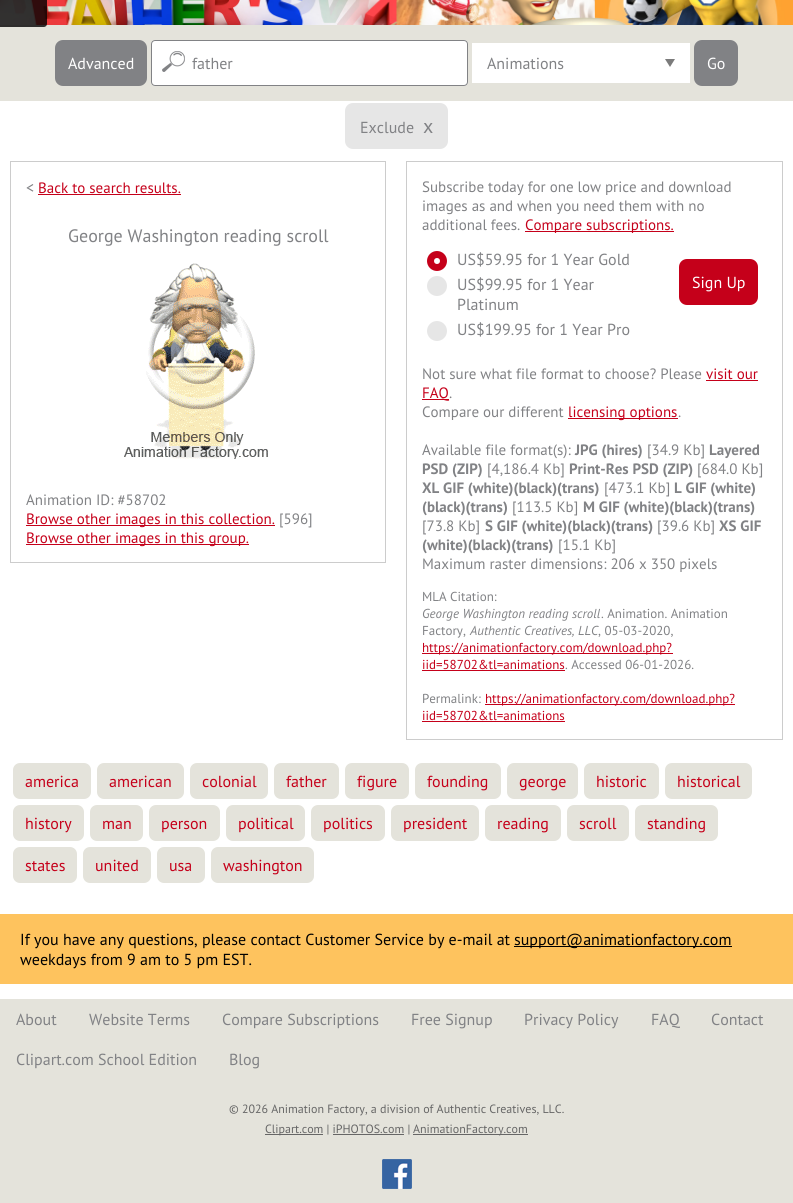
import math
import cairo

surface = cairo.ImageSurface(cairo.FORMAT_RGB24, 793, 1203)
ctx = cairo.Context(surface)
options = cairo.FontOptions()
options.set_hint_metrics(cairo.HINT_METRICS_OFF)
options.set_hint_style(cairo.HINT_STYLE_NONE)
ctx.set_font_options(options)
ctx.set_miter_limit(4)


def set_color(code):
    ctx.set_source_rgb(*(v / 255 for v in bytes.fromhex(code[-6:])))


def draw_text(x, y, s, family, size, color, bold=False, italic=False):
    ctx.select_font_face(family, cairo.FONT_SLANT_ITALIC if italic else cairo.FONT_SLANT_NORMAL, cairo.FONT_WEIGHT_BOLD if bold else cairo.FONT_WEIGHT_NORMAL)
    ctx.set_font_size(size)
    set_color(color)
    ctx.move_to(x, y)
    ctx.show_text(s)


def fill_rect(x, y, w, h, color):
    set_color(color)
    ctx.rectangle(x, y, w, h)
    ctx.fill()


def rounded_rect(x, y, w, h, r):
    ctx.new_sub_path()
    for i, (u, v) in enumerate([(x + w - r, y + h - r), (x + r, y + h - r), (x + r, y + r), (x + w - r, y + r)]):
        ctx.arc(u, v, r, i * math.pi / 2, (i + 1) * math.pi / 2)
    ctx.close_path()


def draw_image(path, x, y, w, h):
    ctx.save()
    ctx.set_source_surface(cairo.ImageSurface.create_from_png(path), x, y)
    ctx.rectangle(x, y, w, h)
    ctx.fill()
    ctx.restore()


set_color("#ffffff")
ctx.paint()
draw_image("assets/img1.png", 0, 0, 793, 25)
fill_rect(0, 25, 793, 76, "#e4e3db")
ctx.set_source_rgba(0, 0, 0, 0.8)
ctx.new_path()
ctx.move_to(0, -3)
ctx.line_to(44, -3)
ctx.curve_to(45.5, -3, 47, -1.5, 47, 0)
ctx.line_to(47, 24)
ctx.curve_to(47, 25.5, 45.5, 27, 44, 27)
ctx.line_to(0, 27)
ctx.close_path()
ctx.fill()
set_color("#818285")
rounded_rect(55, 40, 92, 46, 8)
ctx.fill()
draw_text(68, 69, "Advanced", "PT Sans", 16, "#ffffff")
rounded_rect(151, 40, 317, 46, 4)
ctx.fill()
draw_image("assets/img2.png", 162, 51, 23, 21)
rounded_rect(151.5, 40.5, 316, 45, 3.5)
set_color("#818285")
ctx.set_line_width(1)
ctx.stroke()
draw_text(192, 69, "father", "PT Sans", 16, "#818285")
fill_rect(472, 43, 218, 40, "#ffffff")
draw_text(487, 69, "Animations", "PT Sans", 16, "#818285")
set_color("#7b7b7b")
ctx.new_path()
ctx.move_to(665, 59)
ctx.line_to(675, 59)
ctx.line_to(670, 67)
ctx.close_path()
ctx.fill()
set_color("#818285")
rounded_rect(694, 40, 44, 46, 8)
ctx.fill()
draw_text(707, 69, "Go", "PT Sans", 16, "#ffffff")
set_color("#e6e6e6")
rounded_rect(345, 103, 103, 46, 8)
ctx.fill()
draw_text(360, 133, "Exclude", "PT Sans", 16, "#818285")
draw_text(423, 133, "x", "PT Sans", 20, "#818285")
ctx.rectangle(10.5, 161.5, 375, 401)
set_color("#cccccc")
ctx.stroke()
draw_text(26, 193, "<", "PT Sans", 16, "#818285")
draw_text(38, 193, "Back to search results.", "PT Sans", 15, "#c5001a")
fill_rect(38, 194, 143, 1, "#c5001a")
draw_text(68, 242, "George Washington reading scroll", "PT Sans", 18, "#818285")
draw_image("assets/img3.png", 124, 263, 145, 196)
draw_text(26, 505, "Animation ID: #58702", "PT Sans", 15, "#818285")
fill_rect(26, 525, 249, 1, "#c5001a")
draw_text(26, 524, "Browse other images in this collection.", "PT Sans", 15, "#c5001a")
draw_text(279, 524, "[596]", "PT Sans", 15, "#818285")
fill_rect(26, 544, 223, 1, "#c5001a")
draw_text(26, 543, "Browse other images in this group.", "PT Sans", 15, "#c5001a")
ctx.rectangle(406.5, 161.5, 376, 578)
set_color("#cccccc")
ctx.stroke()
draw_text(422, 192, "Subscribe today for one low price and download", "PT Sans", 15, "#818285")
draw_text(422, 211, "images as and when you need them with no", "PT Sans", 15, "#818285")
draw_text(422, 230, "additional fees.", "PT Sans", 15, "#818285")
fill_rect(525, 231, 149, 1, "#c5001a")
draw_text(525, 230, "Compare subscriptions.", "PT Sans", 15, "#c5001a")
ctx.new_path()
ctx.arc(437, 261, 10, 0, 2 * math.pi)
ctx.fill()
set_color("#ffffff")
ctx.arc(437, 261, 3, 0, 2 * math.pi)
ctx.fill()
draw_text(457, 265, "US$59.95 for 1 Year Gold", "PT Sans", 16, "#818285")
set_color("#e6e6e6")
ctx.new_path()
ctx.arc(437, 286, 10, 0, 2 * math.pi)
ctx.fill()
draw_text(457, 290, "US$99.95 for 1 Year", "PT Sans", 16, "#818285")
draw_text(457, 310, "Platinum", "PT Sans", 16, "#818285")
set_color("#e6e6e6")
ctx.new_path()
ctx.arc(437, 331, 10, 0, 2 * math.pi)
ctx.fill()
draw_text(457, 335, "US$199.95 for 1 Year Pro", "PT Sans", 16, "#818285")
set_color("#c5001a")
rounded_rect(679, 259, 79, 46, 8)
ctx.fill()
draw_text(692, 288, "Sign Up", "PT Sans", 16, "#ffffff")
draw_text(422, 379, "Not sure what file format to choose? Please", "PT Sans", 15, "#818285")
draw_text(706, 379, "visit our", "PT Sans", 15, "#c5001a")
fill_rect(706, 380, 52, 1, "#c5001a")
fill_rect(422, 399, 27, 1, "#c5001a")
draw_text(422, 398, "FAQ", "PT Sans", 15, "#c5001a")
draw_text(449, 398, ".", "PT Sans", 15, "#818285")
draw_text(422, 417, "Compare our different", "PT Sans", 15, "#818285")
fill_rect(568, 418, 110, 1, "#c5001a")
draw_text(568, 417, "licensing options", "PT Sans", 15, "#c5001a")
draw_text(678, 417, ".", "PT Sans", 15, "#818285")
draw_text(422, 455, "Available file format(s):", "PT Sans", 15, "#818285")
draw_text(575, 455, "JPG (hires)", "PT Sans", 15, "#818285", bold=True)
draw_text(647, 455, "[34.9 Kb]", "PT Sans", 15, "#818285")
draw_text(709, 455, "Layered", "PT Sans", 15, "#818285", bold=True)
draw_text(422, 474, "PSD (ZIP)", "PT Sans", 15, "#818285", bold=True)
draw_text(487, 474, "[4,186.4 Kb]", "PT Sans", 15, "#818285")
draw_text(569, 474, "Print-Res PSD (ZIP)", "PT Sans", 15, "#818285", bold=True)
draw_text(697, 474, "[684.0 Kb]", "PT Sans", 15, "#818285")
draw_text(422, 493, "XL GIF (white)(black)(trans)", "PT Sans", 15, "#818285", bold=True)
draw_text(604, 493, "[473.1 Kb]", "PT Sans", 15, "#818285")
draw_text(674, 493, "L GIF (white)", "PT Sans", 15, "#818285", bold=True)
draw_text(422, 512, "(black)(trans)", "PT Sans", 15, "#818285", bold=True)
draw_text(512, 512, "[113.5 Kb]", "PT Sans", 15, "#818285")
draw_text(583, 512, "M GIF (white)(black)(trans)", "PT Sans", 15, "#818285", bold=True)
draw_text(422, 531, "[73.8 Kb]", "PT Sans", 15, "#818285")
draw_text(485, 531, "S GIF (white)(black)(trans)", "PT Sans", 15, "#818285", bold=True)
draw_text(657, 531, "[39.6 Kb]", "PT Sans", 15, "#818285")
draw_text(719, 531, "XS GIF", "PT Sans", 15, "#818285", bold=True)
draw_text(422, 550, "(white)(black)(trans)", "PT Sans", 15, "#818285", bold=True)
draw_text(558, 550, "[15.1 Kb]", "PT Sans", 15, "#818285")
draw_text(422, 569, "Maximum raster dimensions: 206 x 350 pixels", "PT Sans", 15, "#818285")
draw_text(422, 601, "MLA Citation:", "PT Sans", 13, "#818285")
draw_text(422, 618, "George Washington reading scroll", "PT Sans", 13, "#818285", italic=True)
draw_text(601, 618, ". Animation. Animation", "PT Sans", 13, "#818285")
draw_text(422, 635, "Factory,", "PT Sans", 13, "#818285")
draw_text(470, 635, "Authentic Creatives, LLC", "PT Sans", 13, "#818285", italic=True)
draw_text(598, 635, ", 05-03-2020,", "PT Sans", 13, "#818285")
fill_rect(422, 653, 251, 1, "#c5001a")
draw_text(422, 652, "https://animationfactory.com/download.php?", "PT Sans", 13, "#c5001a")
draw_text(422, 669, "iid=58702&tl=animations", "PT Sans", 13, "#c5001a")
fill_rect(422, 670, 143, 1, "#c5001a")
draw_text(565, 669, ". Accessed 06-01-2026.", "PT Sans", 13, "#818285")
draw_text(422, 703, "Permalink:", "PT Sans", 13, "#818285")
fill_rect(485, 704, 250, 1, "#c5001a")
draw_text(485, 703, "https://animationfactory.com/download.php?", "PT Sans", 13, "#c5001a")
draw_text(422, 720, "iid=58702&tl=animations", "PT Sans", 13, "#c5001a")
fill_rect(422, 721, 143, 1, "#c5001a")
set_color("#e4e3db")
rounded_rect(13, 763, 78, 36, 7)
ctx.fill()
draw_text(25, 787, "america", "PT Sans", 16, "#c5001a")
set_color("#e4e3db")
rounded_rect(97, 763, 87, 36, 7)
ctx.fill()
draw_text(109, 787, "american", "PT Sans", 16, "#c5001a")
set_color("#e4e3db")
rounded_rect(190, 763, 78, 36, 7)
ctx.fill()
draw_text(202, 787, "colonial", "PT Sans", 16, "#c5001a")
set_color("#e4e3db")
rounded_rect(274, 763, 65, 36, 7)
ctx.fill()
draw_text(286, 787, "father", "PT Sans", 16, "#c5001a")
set_color("#e4e3db")
rounded_rect(345, 763, 64, 36, 7)
ctx.fill()
draw_text(357, 787, "figure", "PT Sans", 16, "#c5001a")
set_color("#e4e3db")
rounded_rect(415, 763, 86, 36, 7)
ctx.fill()
draw_text(427, 787, "founding", "PT Sans", 16, "#c5001a")
set_color("#e4e3db")
rounded_rect(507, 763, 71, 36, 7)
ctx.fill()
draw_text(519, 787, "george", "PT Sans", 16, "#c5001a")
set_color("#e4e3db")
rounded_rect(584, 763, 75, 36, 7)
ctx.fill()
draw_text(596, 787, "historic", "PT Sans", 16, "#c5001a")
set_color("#e4e3db")
rounded_rect(665, 763, 87, 36, 7)
ctx.fill()
draw_text(677, 787, "historical", "PT Sans", 16, "#c5001a")
set_color("#e4e3db")
rounded_rect(13, 805, 71, 36, 7)
ctx.fill()
draw_text(25, 829, "history", "PT Sans", 16, "#c5001a")
set_color("#e4e3db")
rounded_rect(90, 805, 53, 36, 7)
ctx.fill()
draw_text(102, 829, "man", "PT Sans", 16, "#c5001a")
set_color("#e4e3db")
rounded_rect(149, 805, 71, 36, 7)
ctx.fill()
draw_text(161, 829, "person", "PT Sans", 16, "#c5001a")
set_color("#e4e3db")
rounded_rect(226, 805, 79, 36, 7)
ctx.fill()
draw_text(238, 829, "political", "PT Sans", 16, "#c5001a")
set_color("#e4e3db")
rounded_rect(311, 805, 74, 36, 7)
ctx.fill()
draw_text(323, 829, "politics", "PT Sans", 16, "#c5001a")
set_color("#e4e3db")
rounded_rect(391, 805, 88, 36, 7)
ctx.fill()
draw_text(403, 829, "president", "PT Sans", 16, "#c5001a")
set_color("#e4e3db")
rounded_rect(485, 805, 76, 36, 7)
ctx.fill()
draw_text(497, 829, "reading", "PT Sans", 16, "#c5001a")
set_color("#e4e3db")
rounded_rect(567, 805, 62, 36, 7)
ctx.fill()
draw_text(579, 829, "scroll", "PT Sans", 16, "#c5001a")
set_color("#e4e3db")
rounded_rect(635, 805, 83, 36, 7)
ctx.fill()
draw_text(647, 829, "standing", "PT Sans", 16, "#c5001a")
set_color("#e4e3db")
rounded_rect(13, 847, 64, 36, 7)
ctx.fill()
draw_text(25, 871, "states", "PT Sans", 16, "#c5001a")
set_color("#e4e3db")
rounded_rect(83, 847, 68, 36, 7)
ctx.fill()
draw_text(95, 871, "united", "PT Sans", 16, "#c5001a")
set_color("#e4e3db")
rounded_rect(157, 847, 48, 36, 7)
ctx.fill()
draw_text(169, 871, "usa", "PT Sans", 16, "#c5001a")
set_color("#e4e3db")
rounded_rect(211, 847, 103, 36, 7)
ctx.fill()
draw_text(223, 871, "washington", "PT Sans", 16, "#c5001a")
fill_rect(0, 914, 793, 70, "#fec35e")
draw_text(20, 945, "If you have any questions, please contact Customer Service by e-mail at", "PT Sans", 16, "#000000")
fill_rect(514, 946, 218, 1, "#000000")
draw_text(514, 945, "support@animationfactory.com", "PT Sans", 16, "#000000")
draw_text(20, 965, "weekdays from 9 am to 5 pm EST.", "PT Sans", 16, "#000000")
fill_rect(0, 999, 793, 204, "#e4e3db")
draw_text(16, 1025, "About", "PT Sans", 16, "#818285")
draw_text(89, 1025, "Website Terms", "PT Sans", 16, "#818285")
draw_text(222, 1025, "Compare Subscriptions", "PT Sans", 16, "#818285")
draw_text(411, 1025, "Free Signup", "PT Sans", 16, "#818285")
draw_text(524, 1025, "Privacy Policy", "PT Sans", 16, "#818285")
draw_text(651, 1025, "FAQ", "PT Sans", 16, "#818285")
draw_text(711, 1025, "Contact", "PT Sans", 16, "#818285")
draw_text(16, 1065, "Clipart.com School Edition", "PT Sans", 16, "#818285")
draw_text(229, 1065, "Blog", "PT Sans", 16, "#818285")
draw_text(229, 1113, "© 2026 Animation Factory, a division of Authentic Creatives, LLC.", "PT Sans", 12, "#666666")
fill_rect(265, 1134, 58, 1, "#666666")
draw_text(265, 1133, "Clipart.com | iPHOTOS.com |", "PT Sans", 12, "#666666")
fill_rect(413, 1134, 115, 1, "#666666")
draw_text(413, 1133, "AnimationFactory.com", "PT Sans", 12, "#666666")
fill_rect(333, 1134, 71, 1, "#666666")
draw_image("assets/img4.png", 382, 1159, 30, 30)
surface.write_to_png("output.png")
